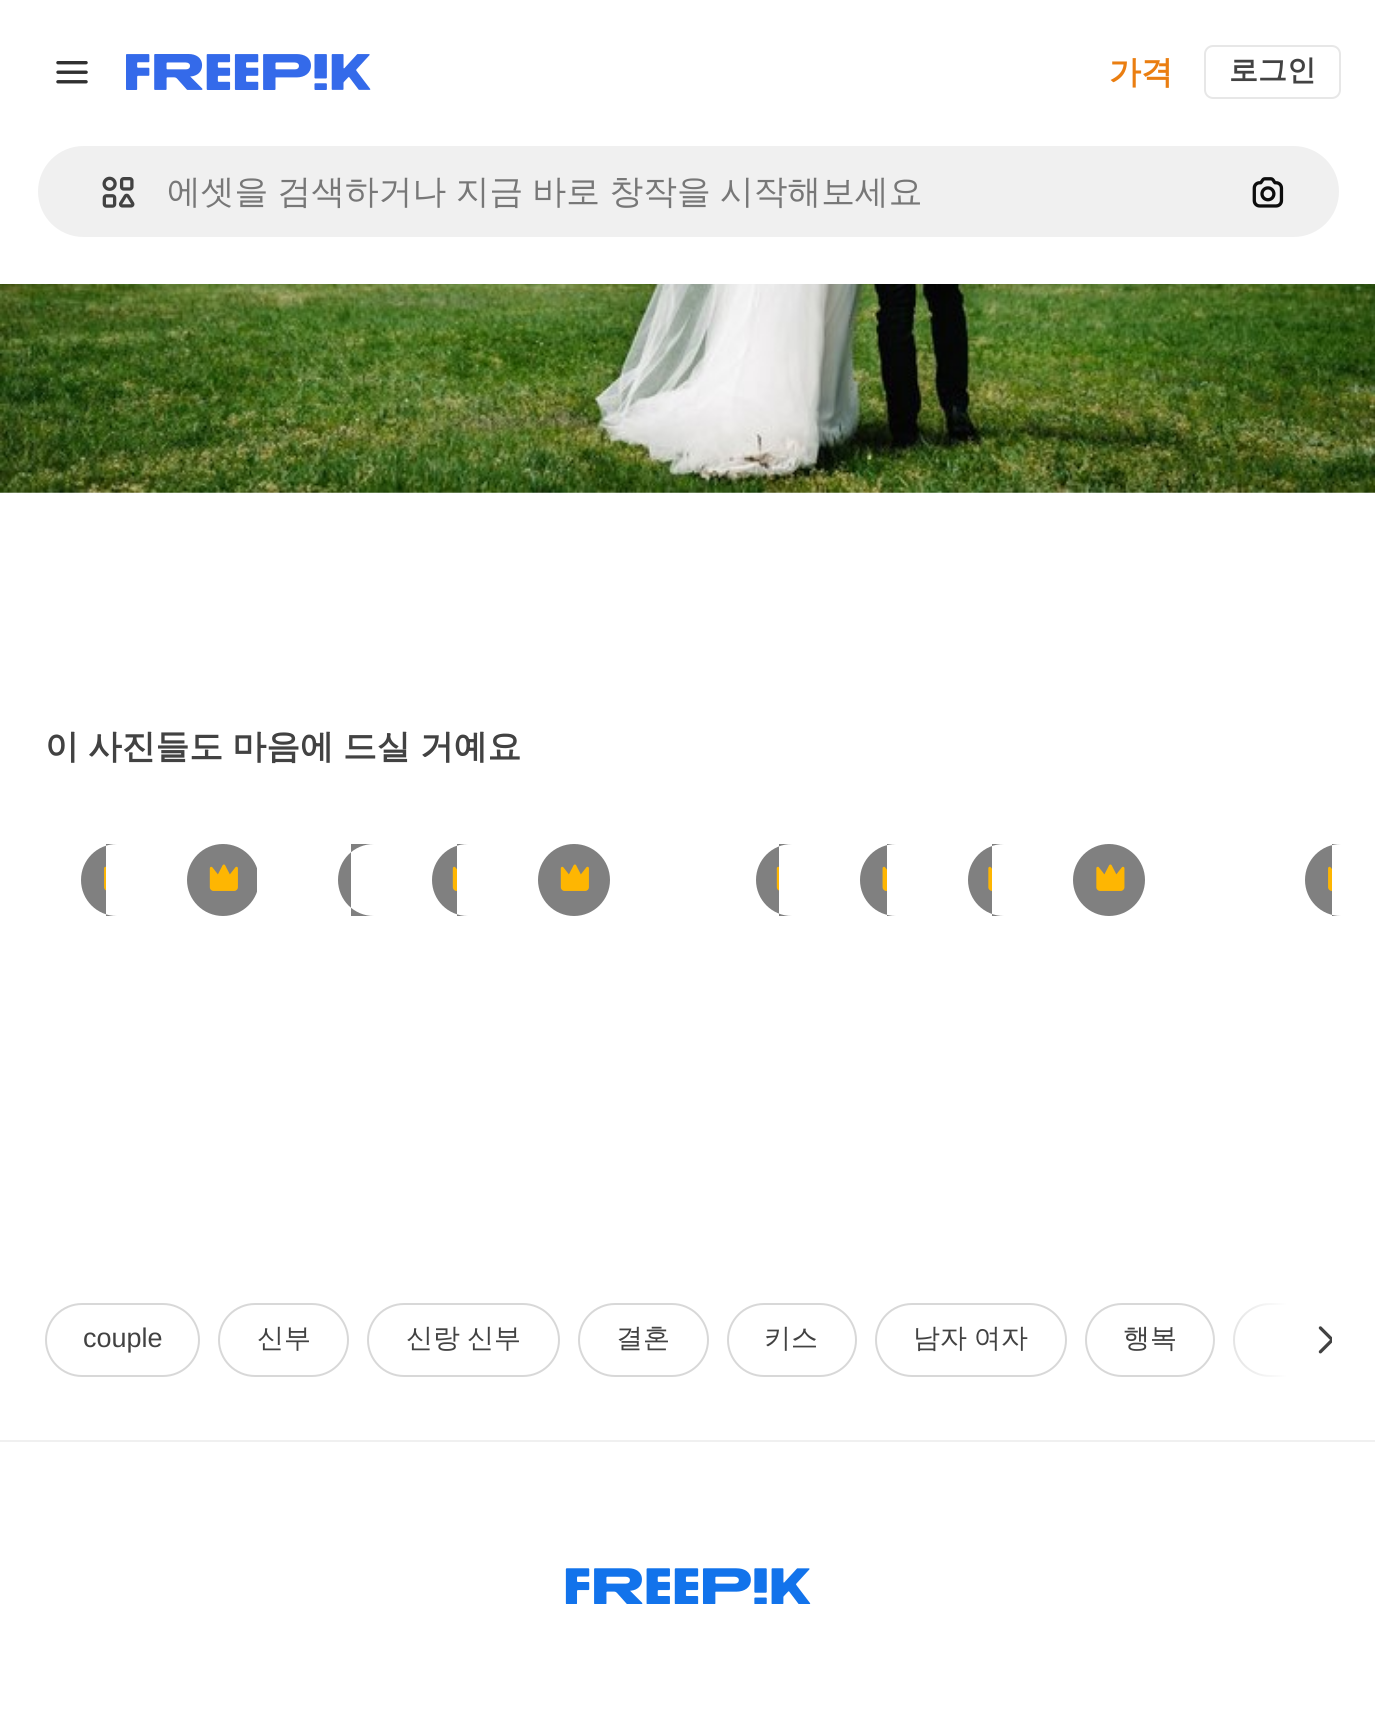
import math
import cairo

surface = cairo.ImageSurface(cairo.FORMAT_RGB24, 1375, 1715)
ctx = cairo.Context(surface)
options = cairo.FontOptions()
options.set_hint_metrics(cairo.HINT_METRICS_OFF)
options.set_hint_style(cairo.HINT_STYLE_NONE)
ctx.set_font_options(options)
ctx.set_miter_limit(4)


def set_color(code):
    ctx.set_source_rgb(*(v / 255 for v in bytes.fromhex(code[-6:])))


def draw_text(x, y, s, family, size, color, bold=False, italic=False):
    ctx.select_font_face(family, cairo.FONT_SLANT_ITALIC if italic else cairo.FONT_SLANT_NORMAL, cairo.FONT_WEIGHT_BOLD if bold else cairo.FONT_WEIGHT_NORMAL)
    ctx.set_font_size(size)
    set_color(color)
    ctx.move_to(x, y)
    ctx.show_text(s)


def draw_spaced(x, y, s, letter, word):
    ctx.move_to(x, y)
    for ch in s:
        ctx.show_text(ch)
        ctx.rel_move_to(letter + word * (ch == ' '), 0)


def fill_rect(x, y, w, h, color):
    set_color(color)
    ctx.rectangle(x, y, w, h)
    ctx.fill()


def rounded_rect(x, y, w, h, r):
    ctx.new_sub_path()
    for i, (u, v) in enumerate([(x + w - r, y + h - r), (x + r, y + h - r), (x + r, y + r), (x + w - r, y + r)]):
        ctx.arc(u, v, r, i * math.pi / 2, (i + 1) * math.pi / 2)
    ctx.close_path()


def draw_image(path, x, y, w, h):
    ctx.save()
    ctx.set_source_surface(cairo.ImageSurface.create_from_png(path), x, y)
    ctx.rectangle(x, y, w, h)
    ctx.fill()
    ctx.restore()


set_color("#ffffff")
ctx.paint()
draw_image("assets/img1.png", 56, 61, 32, 23)
draw_image("assets/img2.png", 126, 54, 245, 36)
draw_text(1109, 83, "가격", "WenQuanYi Zen Hei", 32, "#ea7e11", bold=True)
rounded_rect(1205, 46, 135, 52, 8)
set_color("#e7e7e7")
ctx.stroke()
draw_text(1229, 80, "로그인", "WenQuanYi Zen Hei", 29, "#424242", bold=True)
set_color("#f0f0f0")
rounded_rect(37, 145, 1303, 93, 46.5)
ctx.fill_preserve()
set_color("#ffffff")
ctx.stroke()
draw_image("assets/img3.png", 102, 176, 33, 32)
ctx.select_font_face("WenQuanYi Zen Hei Medium")
ctx.set_font_size(33.75)
set_color("#777777")
draw_spaced(167, 203, "에셋을 검색하거나 지금 바로 창작을 시작해보세요", 0, -0.75)
draw_image("assets/img4.png", 1252, 177, 32, 31)
draw_image("assets/img5.png", 0, 284, 1375, 209)
ctx.select_font_face("WenQuanYi Zen Hei", cairo.FONT_SLANT_NORMAL, cairo.FONT_WEIGHT_BOLD)
set_color("#424242")
draw_spaced(45, 758, "이 사진들도 마음에 드실 거예요", 0, -0.75)
set_color("#808080")
ctx.new_path()
ctx.move_to(117, 844)
ctx.line_to(106, 844)
ctx.line_to(106, 916)
ctx.line_to(117, 916)
ctx.curve_to(97, 916, 81, 900, 81, 880)
ctx.curve_to(81, 860, 97, 844, 117, 844)
ctx.close_path()
ctx.fill()
draw_image("assets/img6.png", 104, 866, 2, 25)
ctx.save()
rounded_rect(151, 808, 106, 450, 36)
ctx.clip()
ctx.arc(223, 880, 36, 0, 2 * math.pi)
ctx.fill()
ctx.restore()
draw_image("assets/img7.png", 209, 864, 29, 27)
ctx.new_path()
ctx.move_to(374, 844)
ctx.line_to(351, 844)
ctx.line_to(351, 916)
ctx.line_to(374, 916)
ctx.curve_to(354, 916, 338, 900, 338, 880)
ctx.curve_to(338, 860, 354, 844, 374, 844)
ctx.close_path()
ctx.fill()
ctx.new_path()
ctx.move_to(468, 844)
ctx.line_to(457, 844)
ctx.line_to(457, 916)
ctx.line_to(468, 916)
ctx.curve_to(448, 916, 432, 900, 432, 880)
ctx.curve_to(432, 860, 448, 844, 468, 844)
ctx.close_path()
ctx.fill()
draw_image("assets/img8.png", 452, 866, 5, 25)
ctx.arc(574, 880, 36, 0, 2 * math.pi)
ctx.fill()
draw_image("assets/img7.png", 560, 864, 29, 27)
ctx.new_path()
ctx.move_to(792, 844)
ctx.line_to(779, 844)
ctx.line_to(779, 916)
ctx.line_to(792, 916)
ctx.curve_to(772, 916, 756, 900, 756, 880)
ctx.curve_to(756, 860, 772, 844, 792, 844)
ctx.close_path()
ctx.fill()
draw_image("assets/img9.png", 776, 866, 3, 25)
ctx.new_path()
ctx.move_to(896, 844)
ctx.line_to(887, 844)
ctx.line_to(887, 916)
ctx.line_to(896, 916)
ctx.curve_to(876, 916, 860, 900, 860, 880)
ctx.curve_to(860, 860, 876, 844, 896, 844)
ctx.close_path()
ctx.fill()
draw_image("assets/img10.png", 882, 866, 5, 25)
ctx.new_path()
ctx.move_to(1004, 844)
ctx.line_to(992, 844)
ctx.line_to(992, 916)
ctx.line_to(1004, 916)
ctx.curve_to(984, 916, 968, 900, 968, 880)
ctx.curve_to(968, 860, 984, 844, 1004, 844)
ctx.close_path()
ctx.fill()
draw_image("assets/img11.png", 988, 866, 4, 25)
ctx.arc(1109, 880, 36, 0, 2 * math.pi)
ctx.fill()
draw_image("assets/img12.png", 1096, 864, 29, 27)
ctx.new_path()
ctx.move_to(1341, 844)
ctx.line_to(1332, 844)
ctx.line_to(1332, 916)
ctx.line_to(1341, 916)
ctx.curve_to(1321, 916, 1305, 900, 1305, 880)
ctx.curve_to(1305, 860, 1321, 844, 1341, 844)
ctx.close_path()
ctx.fill()
draw_image("assets/img13.png", 1328, 866, 4, 25)
rounded_rect(46, 1304, 153, 72, 36)
set_color("#d8d8d8")
ctx.stroke()
draw_text(83, 1347, "couple", "Liberation Sans", 27, "#424242")
rounded_rect(219, 1304, 129, 72, 36)
set_color("#d8d8d8")
ctx.stroke()
draw_text(257, 1347, "신부", "WenQuanYi Zen Hei Medium", 27, "#424242")
rounded_rect(368, 1304, 191, 72, 36)
set_color("#d8d8d8")
ctx.stroke()
set_color("#424242")
draw_spaced(406, 1347, "신랑 신부", 0, -1)
rounded_rect(579, 1304, 129, 72, 36)
set_color("#d8d8d8")
ctx.stroke()
draw_text(616, 1347, "결혼", "WenQuanYi Zen Hei Medium", 27, "#424242")
rounded_rect(728, 1304, 128, 72, 36)
set_color("#d8d8d8")
ctx.stroke()
draw_text(764, 1347, "키스", "WenQuanYi Zen Hei Medium", 27, "#424242")
rounded_rect(876, 1304, 190, 72, 36)
set_color("#d8d8d8")
ctx.stroke()
set_color("#424242")
draw_spaced(913, 1347, "남자 여자", 0, -1)
rounded_rect(1086, 1304, 128, 72, 36)
set_color("#d8d8d8")
ctx.stroke()
draw_text(1123, 1347, "행복", "WenQuanYi Zen Hei Medium", 27, "#424242")
ctx.save()
ctx.rectangle(45, 1303, 1287, 74)
ctx.clip()
rounded_rect(1234, 1304, 129, 72, 36)
set_color("#d8d8d8")
ctx.stroke()
ctx.restore()
fill_rect(1287, 1303, 45, 74, "#ffffff")
gradient = cairo.LinearGradient(1287, 1340, 1208, 1340)
gradient.add_color_stop_rgba(0, 1, 1, 1, 1)
gradient.add_color_stop_rgba(1, 1, 1, 1, 0)
ctx.set_source(gradient)
ctx.rectangle(1213, 1303, 74, 74)
ctx.fill()
draw_image("assets/img14.png", 1318, 1326, 14, 28)
fill_rect(0, 1440, 1375, 2, "#f0f0f0")
draw_image("assets/img15.png", 565, 1568, 246, 36)
surface.write_to_png("output.png")
